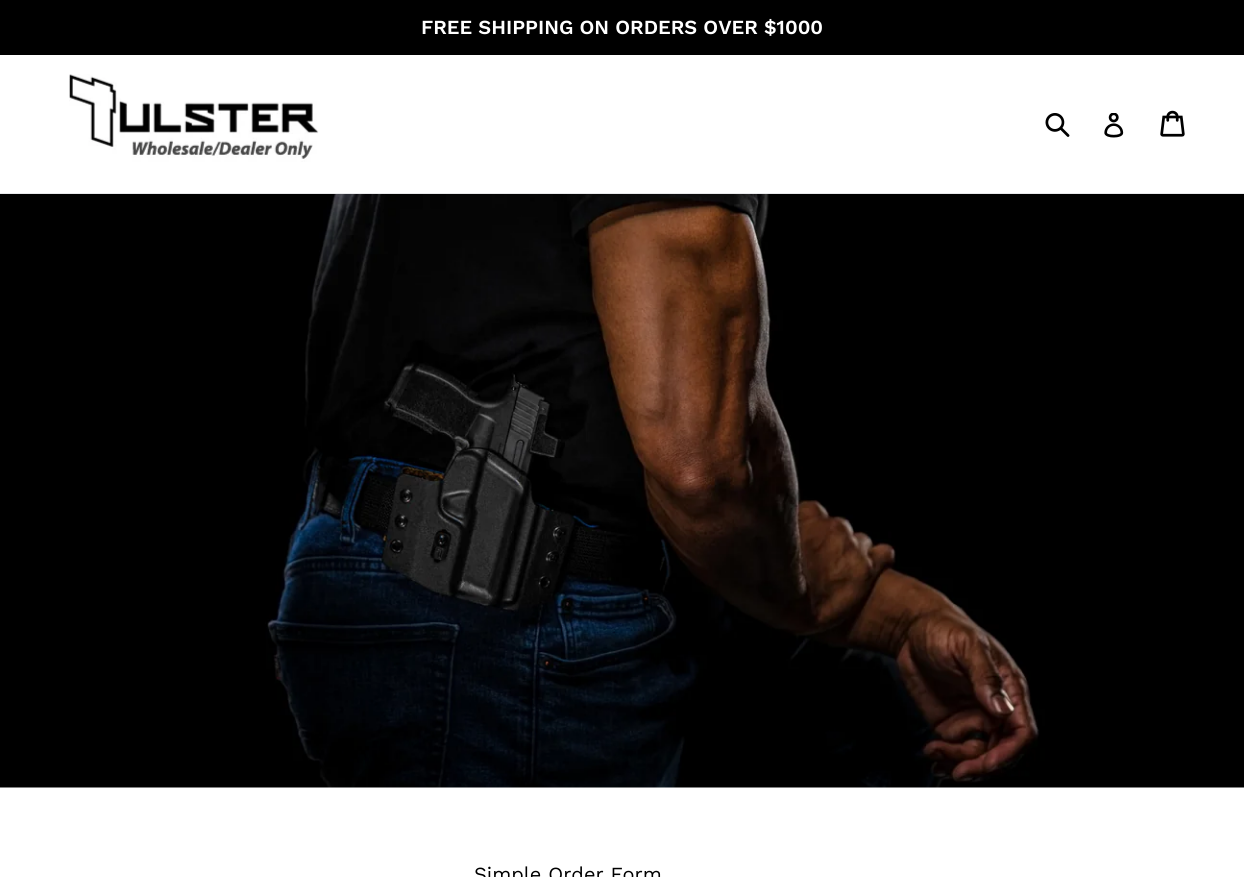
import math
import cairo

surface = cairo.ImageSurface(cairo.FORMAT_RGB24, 1244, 877)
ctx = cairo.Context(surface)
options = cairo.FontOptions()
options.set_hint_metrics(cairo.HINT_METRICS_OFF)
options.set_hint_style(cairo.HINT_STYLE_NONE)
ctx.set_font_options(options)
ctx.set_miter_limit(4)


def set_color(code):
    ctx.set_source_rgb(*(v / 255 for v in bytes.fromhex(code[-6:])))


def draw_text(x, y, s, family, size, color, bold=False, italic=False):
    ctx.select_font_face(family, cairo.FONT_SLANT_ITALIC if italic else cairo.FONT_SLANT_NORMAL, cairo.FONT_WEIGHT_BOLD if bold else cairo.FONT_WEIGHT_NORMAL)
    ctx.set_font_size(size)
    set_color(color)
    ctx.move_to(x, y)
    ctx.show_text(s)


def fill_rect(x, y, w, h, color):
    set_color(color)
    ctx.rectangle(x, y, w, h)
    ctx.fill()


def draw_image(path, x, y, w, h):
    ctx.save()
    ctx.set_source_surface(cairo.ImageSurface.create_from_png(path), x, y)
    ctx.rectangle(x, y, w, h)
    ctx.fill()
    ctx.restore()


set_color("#ffffff")
ctx.paint()
fill_rect(0, 0, 1244, 55, "#000000")
draw_text(421, 34, "FREE SHIPPING ON ORDERS OVER $1000", "Work Sans SemiBold", 20, "#ffffff")
fill_rect(0, 193, 1244, 1, "#e8e9eb")
draw_image("assets/img1.png", 69, 74, 250, 88)
draw_image("assets/img2.png", 1045, 113, 25, 24)
draw_image("assets/img3.png", 1104, 113, 20, 25)
draw_image("assets/img4.png", 1160, 110, 25, 27)
fill_rect(0, 787, 1244, 1, "#f7f7f7")
draw_image("assets/img5.png", 0, 194, 1244, 594)
draw_text(474, 881, "Simple Order Form", "Work Sans", 20, "#000000")
surface.write_to_png("output.png")
